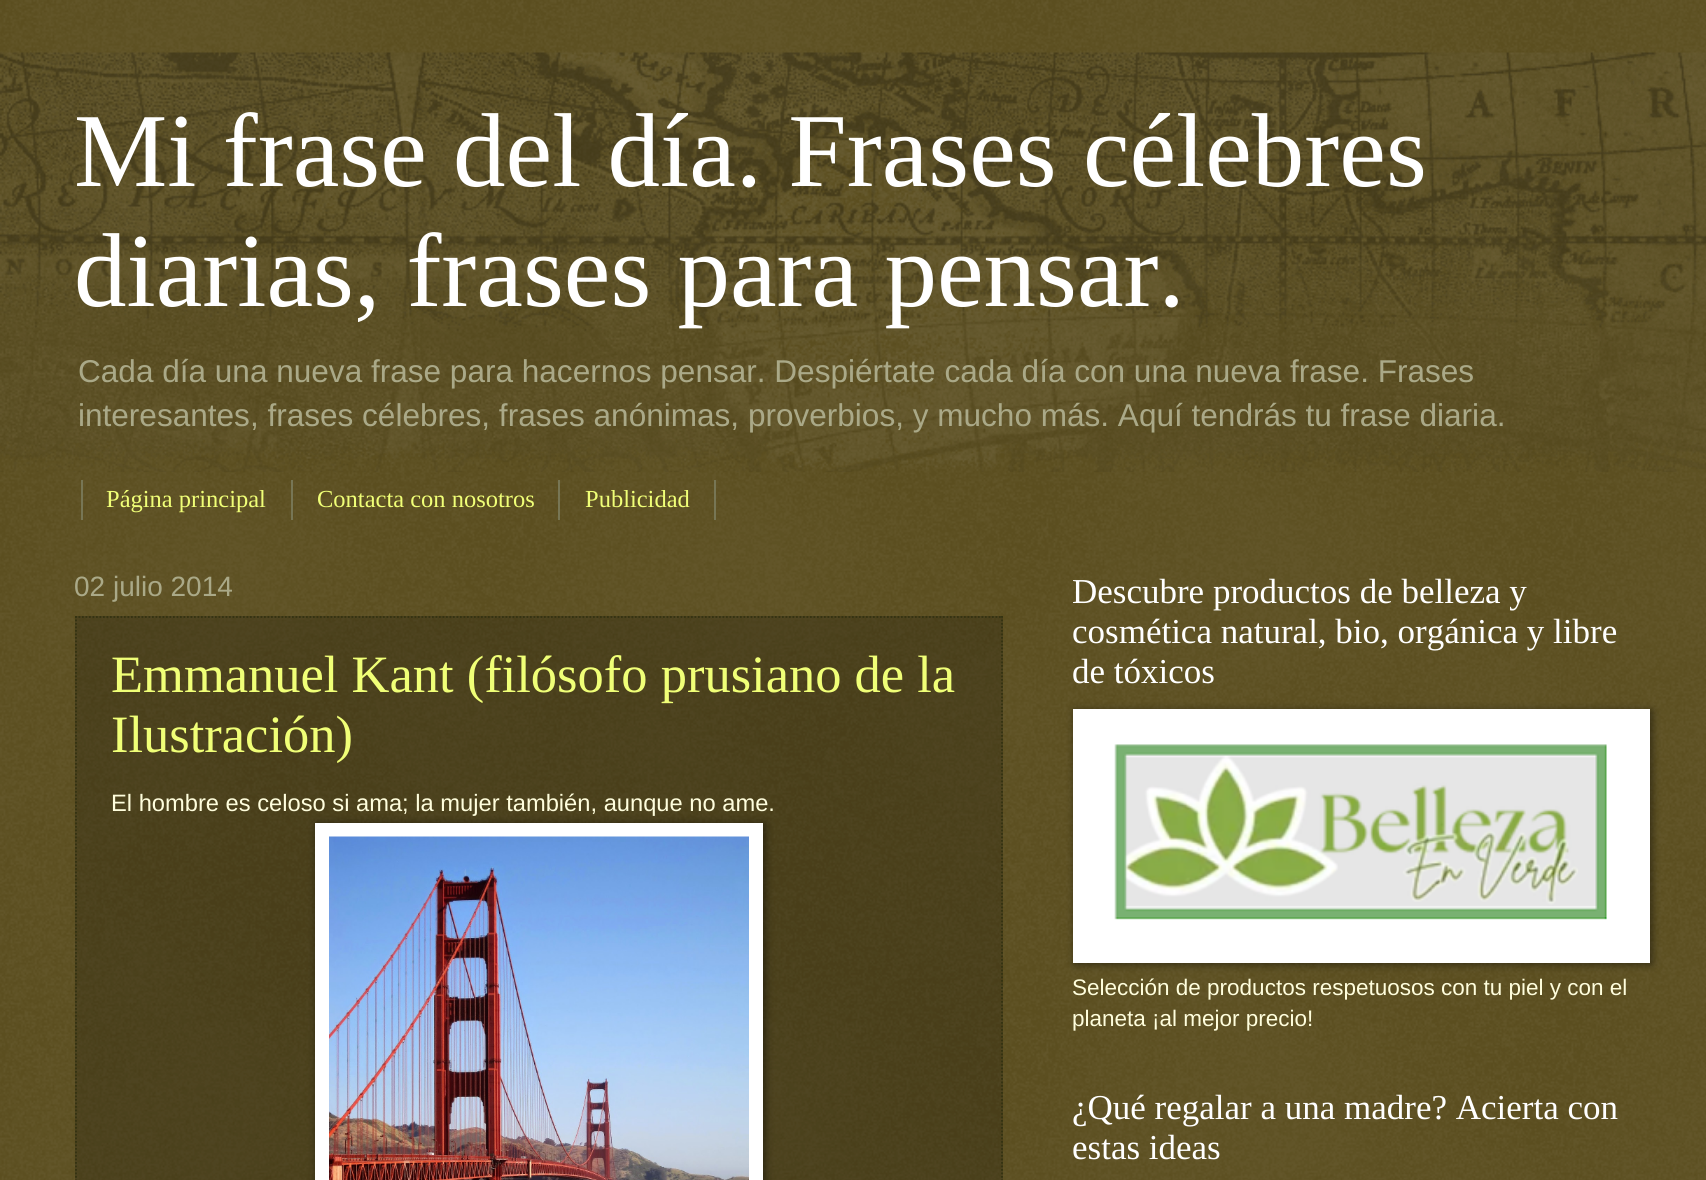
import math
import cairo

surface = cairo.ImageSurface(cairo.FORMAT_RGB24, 1706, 1180)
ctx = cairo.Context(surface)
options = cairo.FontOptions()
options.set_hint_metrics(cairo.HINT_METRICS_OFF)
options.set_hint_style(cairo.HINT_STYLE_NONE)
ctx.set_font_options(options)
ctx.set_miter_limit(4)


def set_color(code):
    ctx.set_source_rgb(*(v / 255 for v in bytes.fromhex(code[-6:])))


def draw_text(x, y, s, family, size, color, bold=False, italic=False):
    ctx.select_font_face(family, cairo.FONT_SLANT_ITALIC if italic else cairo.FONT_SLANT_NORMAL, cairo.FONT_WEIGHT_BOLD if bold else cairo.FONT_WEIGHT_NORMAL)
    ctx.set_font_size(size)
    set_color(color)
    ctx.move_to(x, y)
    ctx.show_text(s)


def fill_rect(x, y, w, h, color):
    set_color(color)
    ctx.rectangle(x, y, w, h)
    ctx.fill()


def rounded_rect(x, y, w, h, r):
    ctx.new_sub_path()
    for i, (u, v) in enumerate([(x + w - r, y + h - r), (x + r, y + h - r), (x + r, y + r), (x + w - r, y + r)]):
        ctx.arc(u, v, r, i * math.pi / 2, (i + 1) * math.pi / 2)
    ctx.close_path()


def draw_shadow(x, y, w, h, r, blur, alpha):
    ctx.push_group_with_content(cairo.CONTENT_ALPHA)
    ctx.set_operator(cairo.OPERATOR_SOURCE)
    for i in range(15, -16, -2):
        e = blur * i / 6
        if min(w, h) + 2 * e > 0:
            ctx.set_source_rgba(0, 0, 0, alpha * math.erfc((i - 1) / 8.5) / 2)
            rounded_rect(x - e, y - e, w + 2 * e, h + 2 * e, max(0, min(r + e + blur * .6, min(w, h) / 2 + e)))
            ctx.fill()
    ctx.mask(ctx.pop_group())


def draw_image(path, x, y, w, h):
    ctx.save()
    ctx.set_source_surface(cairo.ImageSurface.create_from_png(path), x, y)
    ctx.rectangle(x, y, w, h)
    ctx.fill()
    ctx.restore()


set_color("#443500")
ctx.paint()
draw_image("assets/img1.png", 0, 0, 1706, 1180)
draw_image("assets/img2.png", 0, 52, 1706, 420)
draw_text(74, 186, "Mi frase del día. Frases célebres", "Liberation Serif", 105, "#ffffff")
draw_text(74, 306, "diarias, frases para pensar.", "Liberation Serif", 105, "#ffffff")
draw_text(78, 382, "Cada día una nueva frase para hacernos pensar. Despiértate cada día con una nueva frase. Frases", "Liberation Sans", 31.55, "#aaa988")
draw_text(78, 426, "interesantes, frases célebres, frases anónimas, proverbios, y mucho más. Aquí tendrás tu frase diaria.", "Liberation Sans", 31.55, "#aaa988")
fill_rect(291, 480, 2, 40, "#777655")
fill_rect(81, 480, 2, 40, "#777655")
draw_text(106, 507, "Página principal", "Liberation Serif", 24.5, "#f0ff77")
fill_rect(558, 480, 2, 40, "#777655")
draw_text(317, 507, "Contacta con nosotros", "Liberation Serif", 24.5, "#f0ff77")
fill_rect(714, 480, 2, 40, "#777655")
draw_text(585, 507, "Publicidad", "Liberation Serif", 24.5, "#f0ff77")
draw_text(74, 596, "02 julio 2014", "Liberation Sans", 28, "#aaa988")
ctx.set_source_rgba(0, 0, 0, 0.2)
ctx.rectangle(75, 616, 928, 564)
ctx.fill()
ctx.new_path()
ctx.move_to(75, 617)
ctx.line_to(1003, 617)
set_color("#333211")
ctx.set_line_width(1.8)
ctx.set_dash([1.75, 1.75])
ctx.stroke()
ctx.new_path()
ctx.move_to(1002, 616)
ctx.line_to(1002, 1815)
ctx.stroke()
ctx.new_path()
ctx.move_to(76, 616)
ctx.line_to(76, 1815)
ctx.stroke()
draw_text(111, 692, "Emmanuel Kant (filósofo prusiano de la", "Liberation Serif", 52.5, "#f0ff77")
draw_text(111, 752, "Ilustración)", "Liberation Serif", 52.5, "#f0ff77")
draw_text(111, 811, "El hombre es celoso si ama; la mujer también, aunque no ame.", "Liberation Sans", 23.7, "#fffedd")
set_color("#000000")
draw_shadow(317, 824, 448, 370, 0, 4.5, 0.5)
fill_rect(315, 823, 448, 357, "#ffffff")
draw_image("assets/img3.png", 329, 836, 420, 344)
draw_text(1072, 603, "Descubre productos de belleza y", "Liberation Serif", 35, "#ffffff")
draw_text(1072, 643, "cosmética natural, bio, orgánica y libre", "Liberation Serif", 35, "#ffffff")
draw_text(1072, 683, "de tóxicos", "Liberation Serif", 35, "#ffffff")
set_color("#000000")
draw_shadow(1075, 711, 577, 253, 0, 4.5, 0.5)
fill_rect(1073, 709, 577, 254, "#ffffff")
draw_image("assets/img4.png", 1114, 744, 493, 176)
draw_text(1072, 995, "Selección de productos respetuosos con tu piel y con el", "Liberation Sans", 22.5, "#fffedd")
draw_text(1072, 1026, "planeta ¡al mejor precio!", "Liberation Sans", 22.5, "#fffedd")
draw_text(1072, 1119, "¿Qué regalar a una madre? Acierta con", "Liberation Serif", 35, "#ffffff")
draw_text(1072, 1159, "estas ideas", "Liberation Serif", 35, "#ffffff")
surface.write_to_png("output.png")
